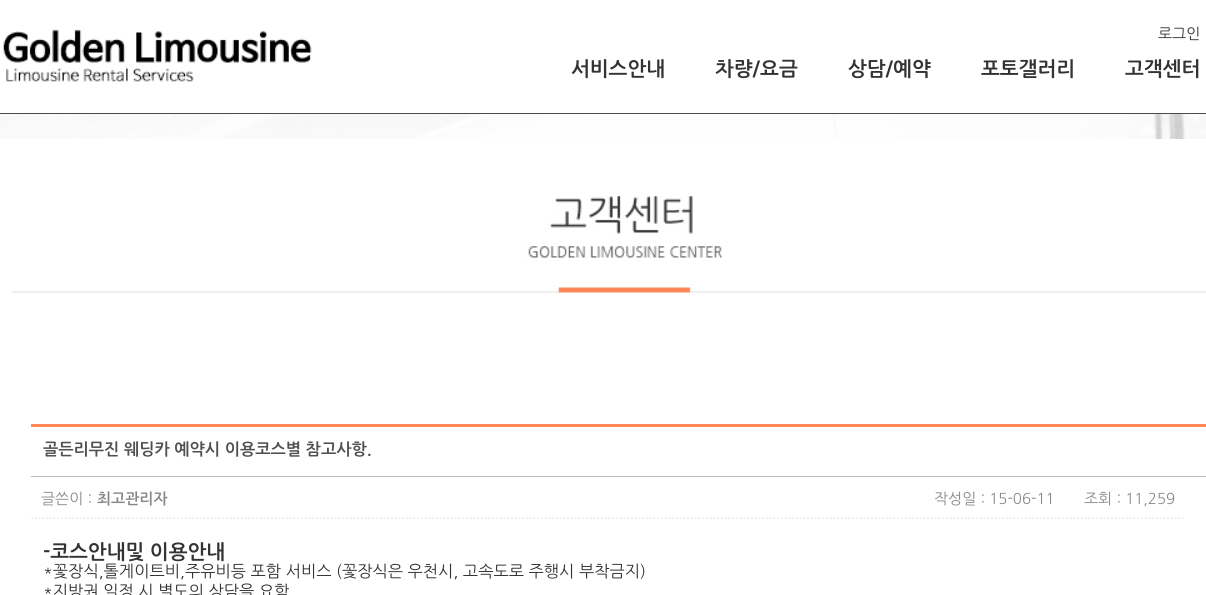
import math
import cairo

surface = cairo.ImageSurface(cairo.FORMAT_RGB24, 1206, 595)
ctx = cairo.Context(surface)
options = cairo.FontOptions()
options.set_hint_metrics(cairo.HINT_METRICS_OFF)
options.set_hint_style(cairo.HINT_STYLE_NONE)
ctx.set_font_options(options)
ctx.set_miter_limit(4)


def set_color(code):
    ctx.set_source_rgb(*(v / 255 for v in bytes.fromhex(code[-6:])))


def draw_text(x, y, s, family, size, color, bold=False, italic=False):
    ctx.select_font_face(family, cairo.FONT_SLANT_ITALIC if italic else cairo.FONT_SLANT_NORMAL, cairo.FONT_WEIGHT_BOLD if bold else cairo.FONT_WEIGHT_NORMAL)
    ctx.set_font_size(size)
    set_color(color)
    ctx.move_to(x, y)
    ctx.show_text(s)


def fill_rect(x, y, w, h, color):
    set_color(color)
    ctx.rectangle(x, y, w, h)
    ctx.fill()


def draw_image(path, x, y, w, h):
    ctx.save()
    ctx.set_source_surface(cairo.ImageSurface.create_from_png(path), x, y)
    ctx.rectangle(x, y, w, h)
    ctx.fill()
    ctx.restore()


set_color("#ffffff")
ctx.paint()
fill_rect(0, 113, 1206, 1, "#4c4c4c")
draw_image("assets/img1.png", 3, 29, 309, 53)
draw_text(1158, 39, "로그인", "NanumGothic", 15, "#333333")
draw_text(571, 76, "서비스안내", "NanumGothic", 20, "#333333", bold=True)
draw_text(715, 76, "차량/요금", "NanumGothic", 20, "#333333", bold=True)
draw_text(848, 76, "상담/예약", "NanumGothic", 20, "#333333", bold=True)
draw_text(981, 76, "포토갤러리", "NanumGothic", 20, "#333333", bold=True)
draw_text(1125, 76, "고객센터", "NanumGothic", 20, "#333333", bold=True)
draw_image("assets/img2.png", 0, 114, 1206, 25)
draw_image("assets/img3.png", 12, 196, 1194, 97)
fill_rect(31, 424, 1175, 3, "#ff8858")
fill_rect(31, 476, 1175, 1, "#bbbbbb")
draw_text(43, 455, "골든리무진 웨딩카 예약시 이용코스별 참고사항.", "NanumGothic", 16.25, "#505050", bold=True)
draw_image("assets/img4.png", 31, 517, 1153, 2)
draw_text(41, 504, "글쓴이 :", "NanumGothic", 15, "#888888")
draw_text(97, 504, "최고관리자", "NanumGothic", 15, "#888888", bold=True)
draw_text(934, 504, "작성일 : 15-06-11", "NanumGothic", 15, "#888888")
draw_text(1084, 504, "조회 : 11,259", "NanumGothic", 15, "#888888")
draw_text(43, 559, "-코스안내및 이용안내", "NanumGothic", 20, "#333333", bold=True)
draw_text(43, 577, "*꽃장식,톨게이트비,주유비등 포함 서비스 (꽃장식은 우천시, 고속도로 주행시 부착금지)", "NanumGothic", 16.25, "#333333")
draw_text(43, 597, "*지방권 일정 시 별도의 상담을 요함", "NanumGothic", 16.25, "#333333")
surface.write_to_png("output.png")
